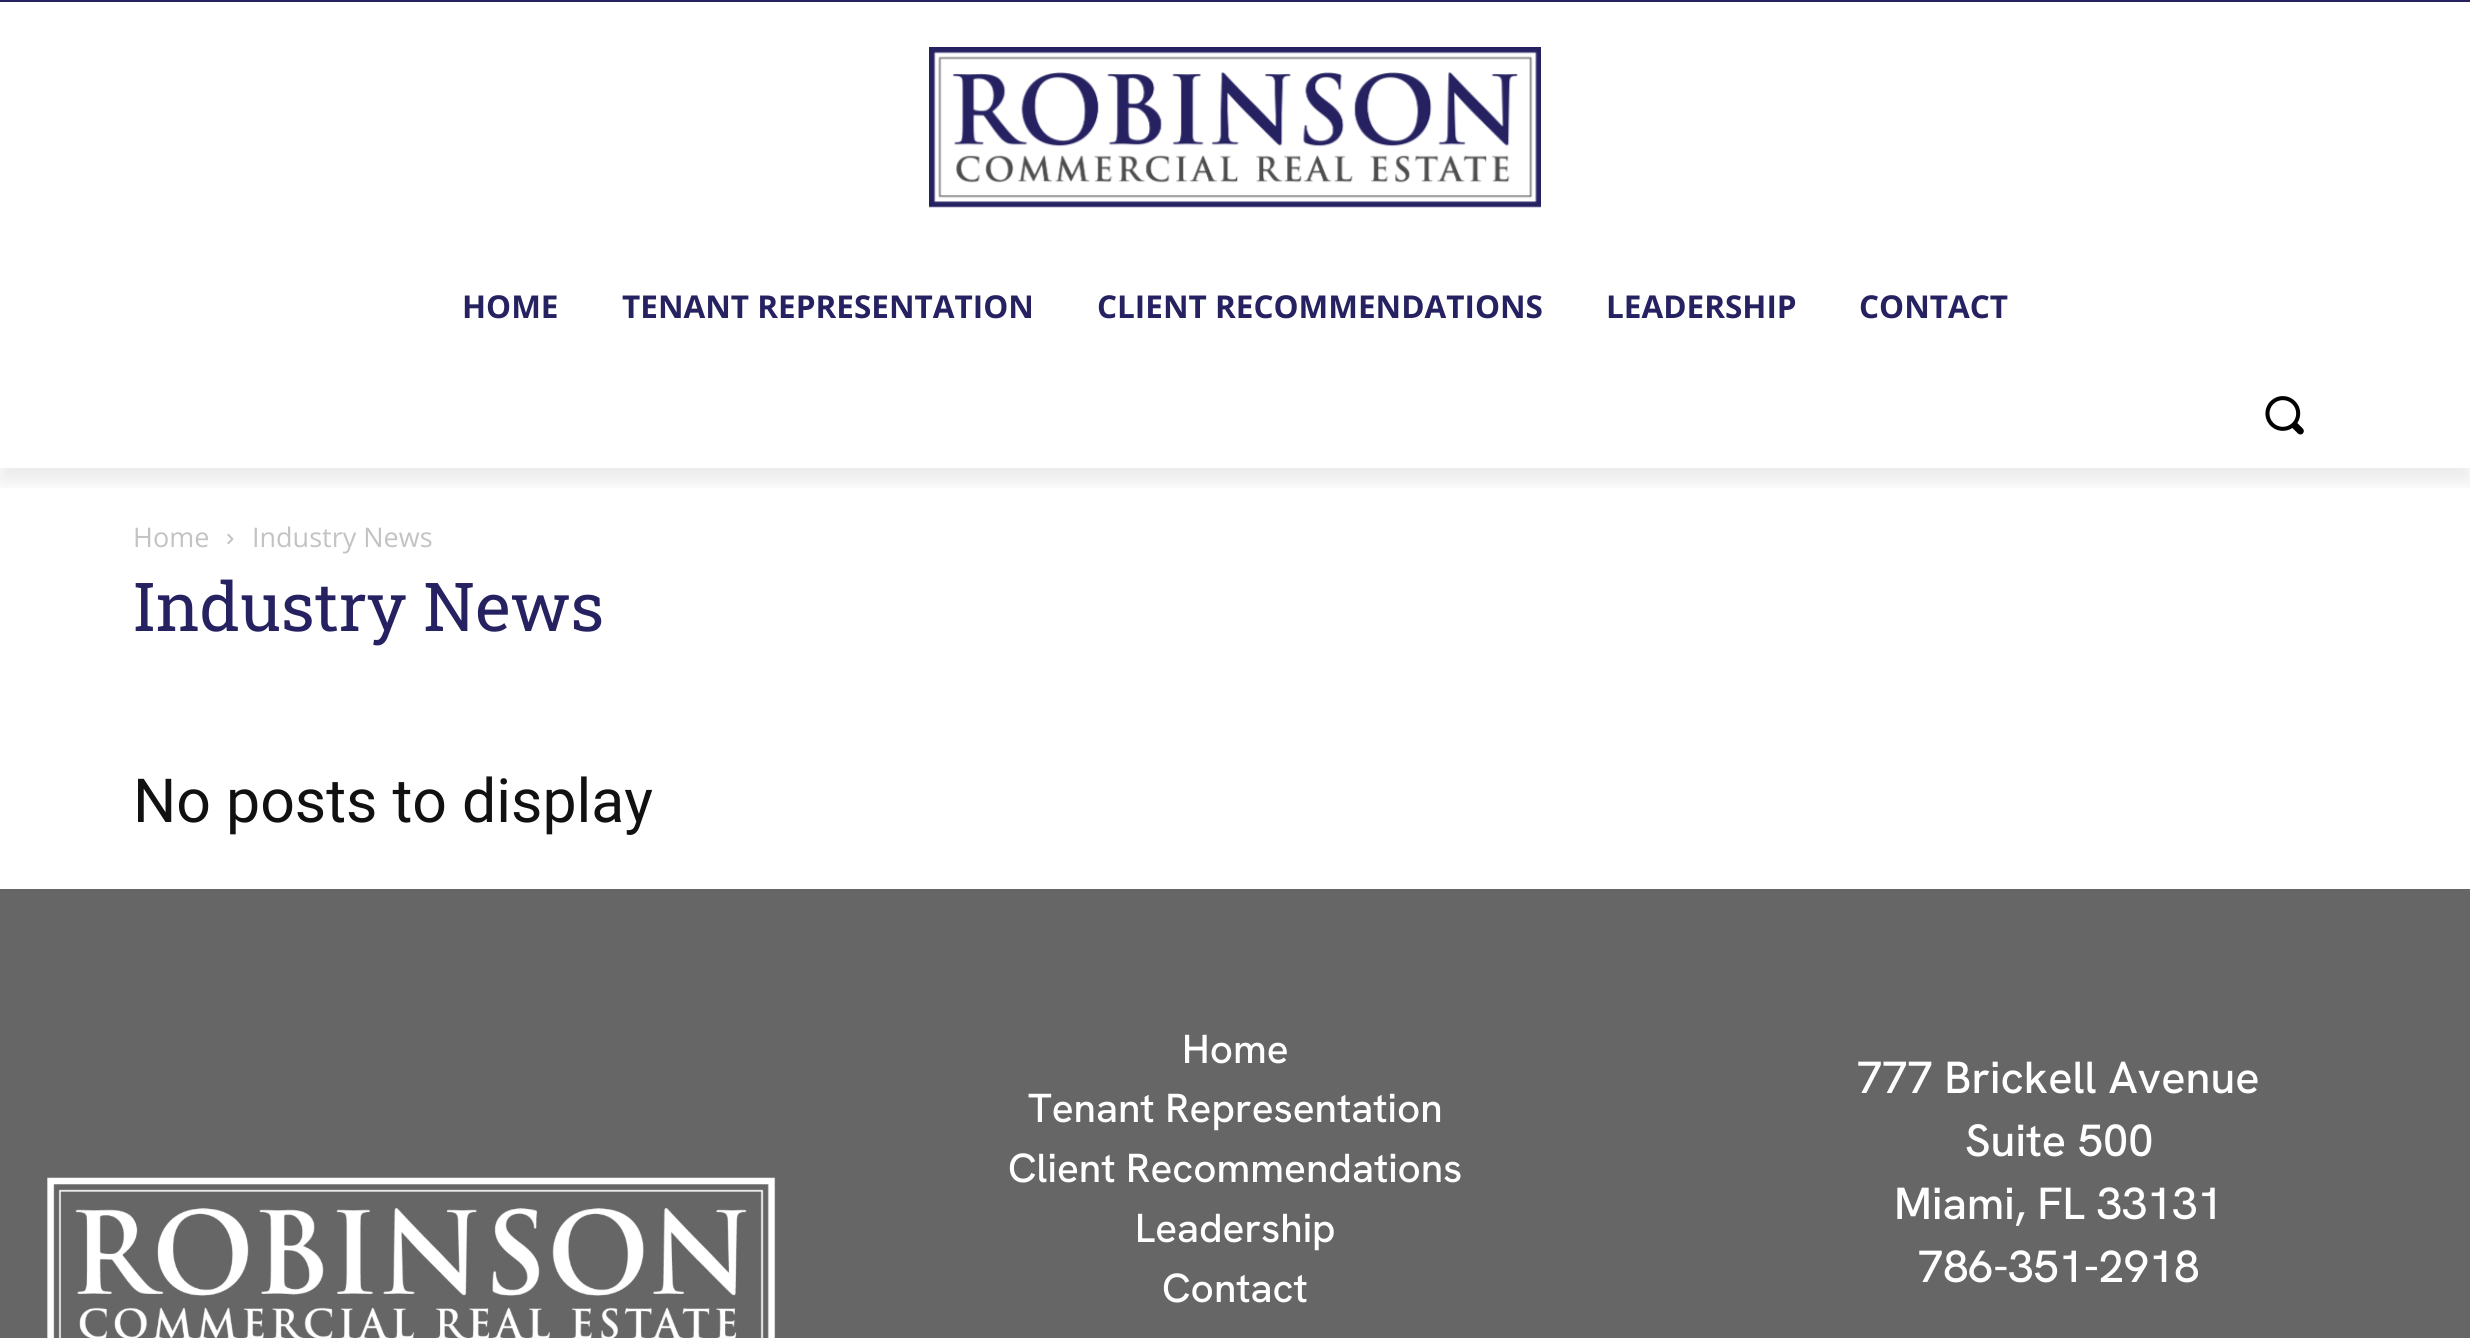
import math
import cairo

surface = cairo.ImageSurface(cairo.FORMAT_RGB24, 2470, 1338)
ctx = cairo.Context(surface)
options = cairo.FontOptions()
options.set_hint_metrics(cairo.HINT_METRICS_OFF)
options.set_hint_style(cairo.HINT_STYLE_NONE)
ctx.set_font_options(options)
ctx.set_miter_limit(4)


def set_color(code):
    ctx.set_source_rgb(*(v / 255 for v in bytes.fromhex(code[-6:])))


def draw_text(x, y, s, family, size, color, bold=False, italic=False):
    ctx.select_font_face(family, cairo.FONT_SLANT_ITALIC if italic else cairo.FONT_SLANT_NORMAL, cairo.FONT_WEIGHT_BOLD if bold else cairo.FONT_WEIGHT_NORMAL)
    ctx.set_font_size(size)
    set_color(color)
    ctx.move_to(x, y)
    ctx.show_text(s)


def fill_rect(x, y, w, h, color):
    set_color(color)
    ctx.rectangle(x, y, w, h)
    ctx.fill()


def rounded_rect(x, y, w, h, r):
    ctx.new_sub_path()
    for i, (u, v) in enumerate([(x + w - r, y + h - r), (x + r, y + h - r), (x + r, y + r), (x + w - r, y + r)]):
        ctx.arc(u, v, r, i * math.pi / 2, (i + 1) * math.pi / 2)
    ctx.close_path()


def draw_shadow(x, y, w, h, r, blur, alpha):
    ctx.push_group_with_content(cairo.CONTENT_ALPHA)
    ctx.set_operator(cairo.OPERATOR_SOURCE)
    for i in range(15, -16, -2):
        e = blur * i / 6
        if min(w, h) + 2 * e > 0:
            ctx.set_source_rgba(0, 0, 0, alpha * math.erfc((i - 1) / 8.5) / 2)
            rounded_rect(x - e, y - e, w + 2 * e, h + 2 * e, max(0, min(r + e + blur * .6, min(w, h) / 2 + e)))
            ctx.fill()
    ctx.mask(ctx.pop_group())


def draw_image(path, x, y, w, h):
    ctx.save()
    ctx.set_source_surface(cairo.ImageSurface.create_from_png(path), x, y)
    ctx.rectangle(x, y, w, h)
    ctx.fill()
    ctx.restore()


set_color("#ffffff")
ctx.paint()
fill_rect(0, 0, 2470, 2, "#262261")
draw_image("assets/img1.png", 929, 47, 612, 161)
ctx.save()
ctx.rectangle(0, 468, 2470, 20)
ctx.clip()
set_color("#000000")
draw_shadow(0, 14, 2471, 468, 0, 9, 0.08)
ctx.restore()
draw_text(462, 318, "HOME", "Open Sans", 31.5, "#262261", bold=True)
draw_text(622, 318, "TENANT REPRESENTATION", "Open Sans", 31.5, "#262261", bold=True)
draw_text(1097, 318, "CLIENT RECOMMENDATIONS", "Open Sans", 31.5, "#262261", bold=True)
draw_text(1606, 318, "LEADERSHIP", "Open Sans", 31.5, "#262261", bold=True)
draw_text(1859, 318, "CONTACT", "Open Sans", 31.5, "#262261", bold=True)
draw_image("assets/img2.png", 2265, 396, 39, 39)
draw_text(133, 547, "Home", "Open Sans", 27, "#c3c3c3")
draw_image("assets/img3.png", 227, 533, 7, 12)
draw_text(252, 547, "Industry News", "Open Sans", 27, "#c3c3c3")
draw_text(133, 631, "Industry News", "Roboto Slab", 67.5, "#262261")
draw_text(133, 822, "No posts to display", "Roboto", 60.75, "#111111")
fill_rect(0, 889, 2470, 449, "#666666")
draw_image("assets/img4.png", 47, 1177, 729, 161)
draw_text(1182, 1063, "Home", "Hanken Grotesk Medium", 40.5, "#ffffff")
draw_text(1028, 1122, "Tenant Representation", "Hanken Grotesk Medium", 40.5, "#ffffff")
draw_text(1008, 1182, "Client Recommendations", "Hanken Grotesk Medium", 40.5, "#ffffff")
draw_text(1135, 1242, "Leadership", "Hanken Grotesk Medium", 40.5, "#ffffff")
draw_text(1162, 1302, "Contact", "Hanken Grotesk Medium", 40.5, "#ffffff")
draw_text(1857, 1093, "777 Brickell Avenue", "Hanken Grotesk Medium", 45, "#ffffff")
draw_text(1965, 1156, "Suite 500", "Hanken Grotesk Medium", 45, "#ffffff")
draw_text(1894, 1219, "Miami, FL 33131", "Hanken Grotesk Medium", 45, "#ffffff")
draw_text(1918, 1282, "786-351-2918", "Hanken Grotesk Medium", 45, "#ffffff")
surface.write_to_png("output.png")
